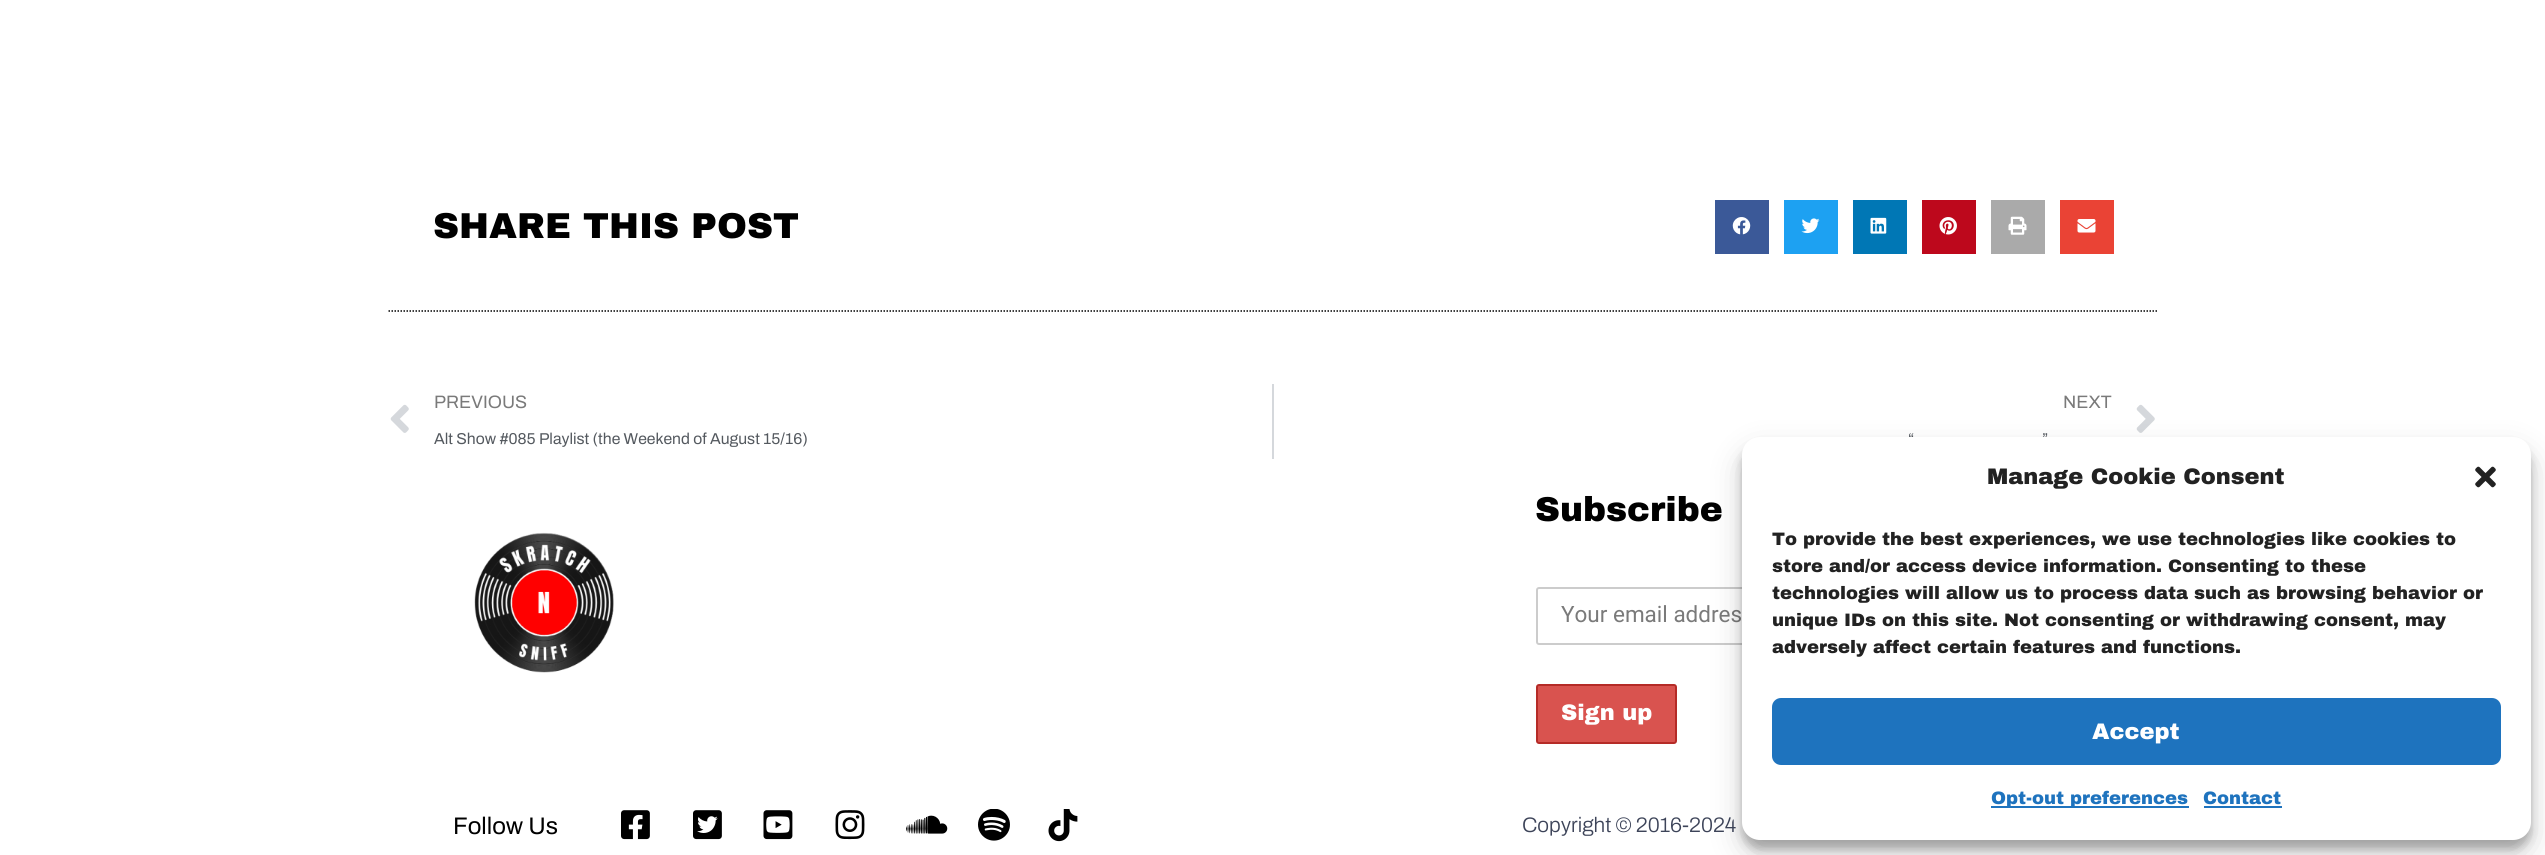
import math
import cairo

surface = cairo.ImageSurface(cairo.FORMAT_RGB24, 2545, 855)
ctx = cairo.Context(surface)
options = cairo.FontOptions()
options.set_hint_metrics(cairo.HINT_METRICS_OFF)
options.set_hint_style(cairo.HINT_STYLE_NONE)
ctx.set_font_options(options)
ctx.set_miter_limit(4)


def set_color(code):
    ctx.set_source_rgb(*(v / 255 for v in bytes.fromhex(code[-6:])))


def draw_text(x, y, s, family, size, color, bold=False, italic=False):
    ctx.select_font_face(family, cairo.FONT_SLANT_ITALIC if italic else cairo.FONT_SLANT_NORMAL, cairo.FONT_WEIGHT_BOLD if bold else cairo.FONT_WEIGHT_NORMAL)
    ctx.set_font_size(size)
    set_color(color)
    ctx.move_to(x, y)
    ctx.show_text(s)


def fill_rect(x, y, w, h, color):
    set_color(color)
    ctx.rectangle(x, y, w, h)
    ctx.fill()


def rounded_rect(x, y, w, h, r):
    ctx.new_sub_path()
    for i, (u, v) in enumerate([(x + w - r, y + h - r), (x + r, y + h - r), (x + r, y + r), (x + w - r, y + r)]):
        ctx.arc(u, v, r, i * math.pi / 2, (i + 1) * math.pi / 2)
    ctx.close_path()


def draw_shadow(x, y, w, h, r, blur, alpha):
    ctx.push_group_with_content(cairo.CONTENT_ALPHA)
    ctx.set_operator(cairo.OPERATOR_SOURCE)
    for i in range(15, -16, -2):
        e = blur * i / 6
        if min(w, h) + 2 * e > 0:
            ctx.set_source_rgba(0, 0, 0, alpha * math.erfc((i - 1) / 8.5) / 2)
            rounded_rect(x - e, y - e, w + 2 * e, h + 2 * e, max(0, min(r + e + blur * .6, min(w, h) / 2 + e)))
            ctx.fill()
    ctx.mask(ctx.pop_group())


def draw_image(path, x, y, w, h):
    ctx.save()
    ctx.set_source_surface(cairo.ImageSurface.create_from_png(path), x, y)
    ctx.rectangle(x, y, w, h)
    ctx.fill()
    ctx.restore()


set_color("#ffffff")
ctx.paint()
draw_text(433, 238, "SHARE THIS POST", "Archivo Black Black", 36, "#000000")
fill_rect(1715, 200, 54, 54, "#3b5998")
draw_image("assets/img1.png", 1732, 217, 19, 18)
fill_rect(1784, 200, 54, 54, "#1da1f2")
draw_image("assets/img2.png", 1801, 218, 19, 16)
fill_rect(1853, 200, 54, 54, "#0077b5")
draw_image("assets/img3.png", 1870, 217, 17, 17)
fill_rect(1922, 200, 54, 54, "#bd081c")
draw_image("assets/img4.png", 1939, 217, 18, 18)
fill_rect(1991, 200, 54, 54, "#aaaaaa")
draw_image("assets/img5.png", 2008, 216, 19, 19)
fill_rect(2060, 200, 54, 54, "#ea4335")
draw_image("assets/img6.png", 2077, 219, 19, 14)
ctx.new_path()
ctx.move_to(388.5, 311)
ctx.line_to(2157, 311)
set_color("#000000")
ctx.set_line_width(1.5)
ctx.set_dash([1.5, 1.5])
ctx.stroke()
draw_image("assets/img7.png", 390, 404, 19, 29)
draw_text(434, 408, "PREVIOUS", "Archivo", 18, "#7a7a7a")
draw_text(434, 444, "Alt Show #085 Playlist (the Weekend of August 15/16)", "Archivo", 15.75, "#54595f")
fill_rect(1272, 384, 2, 75, "#d5d8dc")
draw_text(2063, 408, "NEXT", "Archivo", 18, "#7a7a7a")
draw_text(1908, 444, "“", "Archivo", 15.75, "#54595f")
draw_text(2042, 444, "”", "Archivo", 15.75, "#54595f")
draw_image("assets/img8.png", 2136, 404, 19, 29)
draw_image("assets/img9.png", 474, 532, 140, 141)
draw_text(1535, 521, "Subscribe", "Archivo Black Black", 34.5, "#000000")
rounded_rect(1537, 588, 574, 56, 2)
set_color("#cccccc")
ctx.set_line_width(2)
ctx.set_dash([])
ctx.stroke()
draw_text(1561, 622, "Your email addres", "Roboto", 22.5, "#7a7a7a")
set_color("#d9534f")
rounded_rect(1537, 685, 139, 58, 2)
ctx.fill_preserve()
set_color("#b52b27")
ctx.stroke()
draw_text(1561, 720, "Sign up", "Archivo Black Black", 22.5, "#ffffff")
draw_text(453, 834, "Follow Us", "Archivo", 24, "#000000")
draw_image("assets/img10.png", 621, 810, 29, 30)
draw_image("assets/img11.png", 693, 810, 29, 30)
draw_image("assets/img12.png", 763, 810, 30, 30)
draw_image("assets/img13.png", 835, 810, 30, 30)
draw_image("assets/img14.png", 906, 815, 42, 19)
draw_image("assets/img15.png", 978, 809, 32, 32)
draw_image("assets/img16.png", 1048, 809, 30, 33)
draw_text(1522, 832, "Copyright © 2016-2024", "Archivo Light", 21, "#3d4459")
set_color("#000000")
draw_shadow(1742, 446, 789, 403, 18, 4.5, 0.23)
draw_shadow(1742, 452, 789, 403, 18, 15, 0.19)
set_color("#ffffff")
rounded_rect(1742, 437, 789, 403, 18)
ctx.fill()
draw_text(1987, 484, "Manage Cookie Consent", "Archivo Black Black", 22.5, "#222222")
draw_image("assets/img17.png", 2475, 466, 21, 22)
ctx.save()
ctx.rectangle(1772, 525, 729, 143)
ctx.clip()
draw_text(1772, 545, "To provide the best experiences, we use technologies like cookies to", "Archivo Black Black", 18, "#222222")
ctx.restore()
draw_text(1772, 572, "store and/or access device information. Consenting to these", "Archivo Black Black", 18, "#222222")
draw_text(1772, 599, "technologies will allow us to process data such as browsing behavior or", "Archivo Black Black", 18, "#222222")
draw_text(1772, 626, "unique IDs on this site. Not consenting or withdrawing consent, may", "Archivo Black Black", 18, "#222222")
draw_text(1772, 653, "adversely affect certain features and functions.", "Archivo Black Black", 18, "#222222")
set_color("#1e73be")
rounded_rect(1773, 699, 727, 65, 8)
ctx.fill_preserve()
ctx.stroke()
draw_text(2092, 739, "Accept", "Archivo Black Black", 22.5, "#ffffff")
fill_rect(1991, 806, 198, 2, "#1e73be")
draw_text(1991, 804, "Opt-out preferences", "Archivo Black Black", 18, "#1e73be")
draw_text(2203, 804, "Contact", "Archivo Black Black", 18, "#1e73be")
fill_rect(2204, 806, 78, 2, "#1e73be")
surface.write_to_png("output.png")
